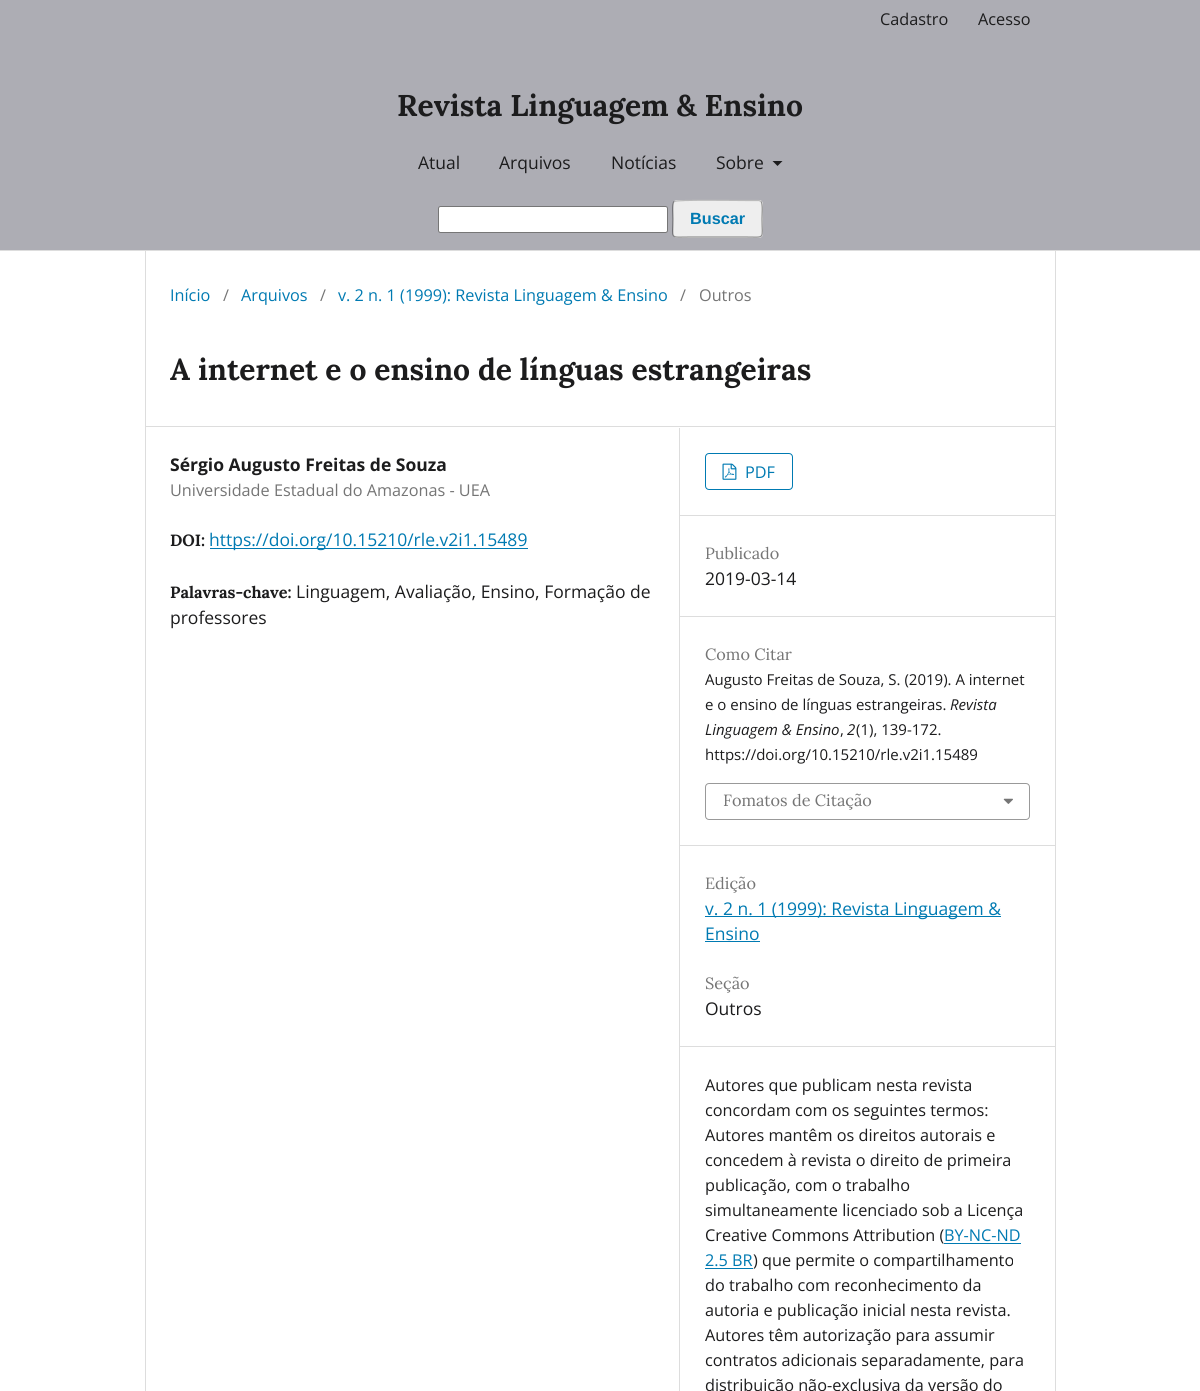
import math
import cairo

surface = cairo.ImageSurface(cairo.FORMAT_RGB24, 1200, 1391)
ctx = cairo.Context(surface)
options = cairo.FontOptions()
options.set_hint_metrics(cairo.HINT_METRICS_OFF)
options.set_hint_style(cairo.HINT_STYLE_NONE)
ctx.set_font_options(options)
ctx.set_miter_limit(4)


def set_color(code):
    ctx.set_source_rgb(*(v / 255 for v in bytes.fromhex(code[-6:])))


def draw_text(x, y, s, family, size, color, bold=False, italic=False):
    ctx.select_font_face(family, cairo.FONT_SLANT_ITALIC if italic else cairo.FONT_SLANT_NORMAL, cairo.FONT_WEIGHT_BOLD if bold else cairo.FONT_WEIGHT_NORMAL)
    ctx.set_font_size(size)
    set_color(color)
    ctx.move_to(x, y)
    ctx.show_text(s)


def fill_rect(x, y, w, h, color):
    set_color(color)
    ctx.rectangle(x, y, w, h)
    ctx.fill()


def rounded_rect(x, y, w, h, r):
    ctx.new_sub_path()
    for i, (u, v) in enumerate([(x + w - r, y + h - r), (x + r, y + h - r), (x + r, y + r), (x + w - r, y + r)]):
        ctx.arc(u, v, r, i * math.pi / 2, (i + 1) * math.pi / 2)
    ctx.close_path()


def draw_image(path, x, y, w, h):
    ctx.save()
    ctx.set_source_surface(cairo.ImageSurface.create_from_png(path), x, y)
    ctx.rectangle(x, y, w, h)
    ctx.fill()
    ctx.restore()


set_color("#ffffff")
ctx.paint()
fill_rect(0, 0, 1200, 250, "#adadb4")
fill_rect(0, 250, 1200, 1, "#dddddd")
draw_text(880, 25, "Cadastro", "Open Sans", 16.25, "#1c1c1d")
draw_text(978, 25, "Acesso", "Open Sans", 16.25, "#1c1c1d")
draw_text(397, 116, "Revista Linguagem & Ensino", "Lora", 30, "#1c1c1d", bold=True)
draw_text(418, 169, "Atual", "Open Sans", 17.5, "#1c1c1d")
draw_text(499, 169, "Arquivos", "Open Sans", 17.5, "#1c1c1d")
draw_text(611, 169, "Notícias", "Open Sans", 17.5, "#1c1c1d")
draw_text(716, 169, "Sobre", "Open Sans", 17.5, "#1c1c1d")
ctx.new_path()
ctx.move_to(772.5, 161)
ctx.line_to(782.5, 161)
ctx.line_to(777.5, 166)
ctx.close_path()
ctx.fill()
set_color("#ffffff")
rounded_rect(438.5, 206.5, 229, 26, 2)
ctx.fill_preserve()
set_color("#767676")
ctx.set_line_width(1)
ctx.stroke()
set_color("#eeeeee")
rounded_rect(673, 200, 90, 38, 4)
ctx.fill()
ctx.new_path()
ctx.move_to(674, 201.5)
ctx.line_to(674.5, 201.5)
ctx.curve_to(676.5, 199.5, 737, 200.5, 745, 200.5)
ctx.line_to(759, 200.5)
ctx.line_to(761, 201.5)
set_color("#bbbbbb")
ctx.set_line_width(1.2)
ctx.stroke()
ctx.new_path()
ctx.move_to(761, 201.5)
ctx.curve_to(763, 203.5, 762, 215.5, 762, 219)
ctx.curve_to(762, 240, 766, 237, 745, 237)
ctx.line_to(690, 237)
ctx.curve_to(669, 237, 673, 240, 673, 219)
ctx.curve_to(673, 215.5, 672, 203.5, 674, 201.5)
ctx.set_source_rgba(0, 0, 0, 0.4)
ctx.stroke()
draw_text(690, 224, "Buscar", "Liberation Sans", 16.25, "#007ab2", bold=True)
fill_rect(145, 426, 910, 1, "#dddddd")
fill_rect(145, 251, 1, 1140, "#dddddd")
draw_text(170, 301, "Início", "Open Sans", 16.25, "#007ab2")
draw_text(223, 301, "/", "Open Sans", 16.25, "#757575")
draw_text(241, 301, "Arquivos", "Open Sans", 16.25, "#007ab2")
draw_text(320, 301, "/", "Open Sans", 16.25, "#757575")
draw_text(338, 301, "v. 2 n. 1 (1999): Revista Linguagem & Ensino", "Open Sans", 16.25, "#007ab2")
draw_text(680, 301, "/", "Open Sans", 16.25, "#757575")
draw_text(699, 301, "Outros", "Open Sans", 16.25, "#757575")
draw_text(170, 380, "A internet e o ensino de línguas estrangeiras", "Lora", 30, "#1c1c1d", bold=True)
draw_text(170, 471, "Sérgio Augusto Freitas de Souza", "Open Sans", 17.5, "#1c1c1d", bold=True)
draw_text(170, 496, "Universidade Estadual do Amazonas - UEA", "Open Sans", 16.25, "#757575")
draw_text(170, 546, "DOI:", "Lora", 16.25, "#1c1c1d", bold=True)
fill_rect(210, 548, 318, 1, "#007ab2")
draw_text(209, 546, "https://doi.org/10.15210/rle.v2i1.15489", "Open Sans", 17.5, "#007ab2")
draw_text(170, 598, "Palavras-chave:", "Lora", 16.25, "#1c1c1d", bold=True)
draw_text(296, 598, "Linguagem, Avaliação, Ensino, Formação de", "Open Sans", 17.5, "#1c1c1d")
draw_text(170, 624, "professores", "Open Sans", 17.5, "#1c1c1d")
fill_rect(679, 428, 1, 963, "#dddddd")
fill_rect(680, 515, 375, 1, "#dddddd")
rounded_rect(705.5, 453.5, 87, 36, 3.5)
set_color("#007ab2")
ctx.set_line_width(1)
ctx.stroke()
draw_image("assets/img1.png", 722, 463, 15, 17)
draw_text(745, 478, "PDF", "Open Sans", 16.25, "#007ab2")
fill_rect(680, 616, 375, 1, "#dddddd")
draw_text(705, 559, "Publicado", "Lora", 16.25, "#757575")
draw_text(705, 585, "2019-03-14", "Open Sans", 17.5, "#1c1c1d")
fill_rect(680, 845, 375, 1, "#dddddd")
draw_text(705, 660, "Como Citar", "Lora", 16.25, "#757575")
draw_text(705, 685, "Augusto Freitas de Souza, S. (2019). A internet", "Open Sans", 15, "#1c1c1d")
draw_text(705, 710, "e o ensino de línguas estrangeiras.", "Open Sans", 15, "#1c1c1d")
draw_text(950, 710, "Revista", "Open Sans", 15, "#1c1c1d", italic=True)
draw_text(705, 735, "Linguagem & Ensino", "Open Sans", 15, "#1c1c1d", italic=True)
draw_text(840, 735, ",", "Open Sans", 15, "#1c1c1d")
draw_text(847, 735, "2", "Open Sans", 15, "#1c1c1d", italic=True)
draw_text(856, 735, "(1), 139-172.", "Open Sans", 15, "#1c1c1d")
draw_text(705, 760, "https://doi.org/10.15210/rle.v2i1.15489", "Open Sans", 15, "#1c1c1d")
rounded_rect(705.5, 783.5, 324, 36, 3.5)
set_color("#999999")
ctx.stroke()
draw_text(723, 806, "Fomatos de Citação", "Lora", 16.25, "#757575")
draw_image("assets/img2.png", 1003, 798, 10, 6)
fill_rect(680, 1046, 375, 1, "#dddddd")
draw_text(705, 889, "Edição", "Lora", 16.25, "#757575")
fill_rect(705, 916, 296, 1, "#007ab2")
draw_text(705, 915, "v. 2 n. 1 (1999): Revista Linguagem &", "Open Sans", 17.5, "#007ab2")
draw_text(705, 940, "Ensino", "Open Sans", 17.5, "#007ab2")
fill_rect(705, 941, 55, 1, "#007ab2")
draw_text(705, 989, "Seção", "Lora", 16.25, "#757575")
draw_text(705, 1015, "Outros", "Open Sans", 17.5, "#1c1c1d")
draw_text(705, 1091, "Autores que publicam nesta revista", "Open Sans", 16.25, "#1c1c1d")
draw_text(705, 1116, "concordam com os seguintes termos:", "Open Sans", 16.25, "#1c1c1d")
draw_text(705, 1141, "Autores mantêm os direitos autorais e", "Open Sans", 16.25, "#1c1c1d")
draw_text(705, 1166, "concedem à revista o direito de primeira", "Open Sans", 16.25, "#1c1c1d")
draw_text(705, 1191, "publicação, com o trabalho", "Open Sans", 16.25, "#1c1c1d")
draw_text(705, 1216, "simultaneamente licenciado sob a Licença", "Open Sans", 16.25, "#1c1c1d")
draw_text(705, 1241, "Creative Commons Attribution (", "Open Sans", 16.25, "#1c1c1d")
fill_rect(944, 1243, 77, 1, "#007ab2")
draw_text(944, 1241, "BY-NC-ND", "Open Sans", 16.25, "#007ab2")
draw_text(705, 1266, "2.5 BR", "Open Sans", 16.25, "#007ab2")
draw_text(753, 1266, ") que permite o compartilhamento", "Open Sans", 16.25, "#1c1c1d")
fill_rect(705, 1268, 48, 1, "#007ab2")
draw_text(705, 1291, "do trabalho com reconhecimento da", "Open Sans", 16.25, "#1c1c1d")
draw_text(705, 1316, "autoria e publicação inicial nesta revista.", "Open Sans", 16.25, "#1c1c1d")
draw_text(705, 1341, "Autores têm autorização para assumir", "Open Sans", 16.25, "#1c1c1d")
draw_text(705, 1366, "contratos adicionais separadamente, para", "Open Sans", 16.25, "#1c1c1d")
draw_text(705, 1391, "distribuição não-exclusiva da versão do", "Open Sans", 16.25, "#1c1c1d")
fill_rect(1055, 251, 1, 1140, "#dddddd")
surface.write_to_png("output.png")
